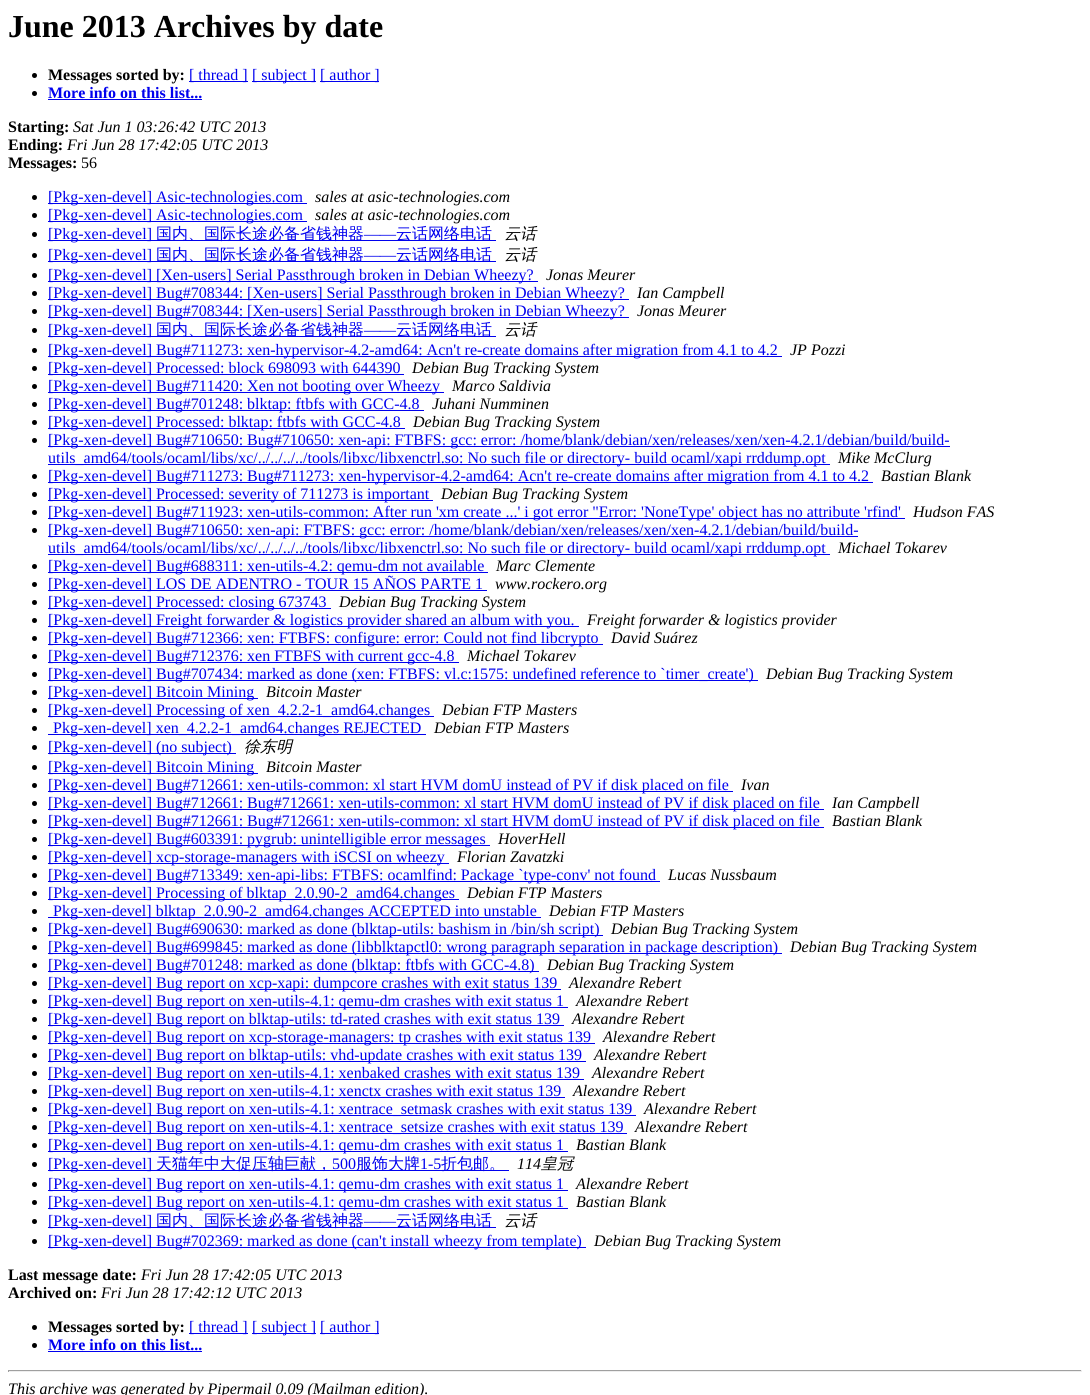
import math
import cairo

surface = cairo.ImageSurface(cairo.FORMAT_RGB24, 1090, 1395)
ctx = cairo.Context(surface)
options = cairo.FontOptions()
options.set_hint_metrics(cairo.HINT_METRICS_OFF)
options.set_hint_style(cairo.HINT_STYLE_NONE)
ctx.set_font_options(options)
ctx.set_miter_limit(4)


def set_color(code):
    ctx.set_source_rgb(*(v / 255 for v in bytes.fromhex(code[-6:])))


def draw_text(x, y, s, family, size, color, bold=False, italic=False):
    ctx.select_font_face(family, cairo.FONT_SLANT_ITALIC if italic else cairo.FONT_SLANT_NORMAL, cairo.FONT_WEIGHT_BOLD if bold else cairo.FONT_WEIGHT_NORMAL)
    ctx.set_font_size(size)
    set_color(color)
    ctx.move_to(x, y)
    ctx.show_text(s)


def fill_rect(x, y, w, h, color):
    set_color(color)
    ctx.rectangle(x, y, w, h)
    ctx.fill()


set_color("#ffffff")
ctx.paint()
draw_text(8, 37, "June 2013 Archives by date", "Liberation Serif", 32, "#000000", bold=True)
ctx.new_path()
ctx.arc(34.5, 75.5, 2.5, 0, 2 * math.pi)
ctx.fill()
draw_text(48, 80, "Messages sorted by:", "Liberation Serif", 16, "#000000", bold=True)
fill_rect(189, 81, 59, 1, "#0000ee")
draw_text(189, 80, "[ thread ]", "Liberation Serif", 16, "#0000ee")
fill_rect(252, 81, 64, 1, "#0000ee")
draw_text(252, 80, "[ subject ]", "Liberation Serif", 16, "#0000ee")
fill_rect(320, 81, 59, 1, "#0000ee")
draw_text(320, 80, "[ author ]", "Liberation Serif", 16, "#0000ee")
set_color("#000000")
ctx.new_path()
ctx.arc(34.5, 93.5, 2.5, 0, 2 * math.pi)
ctx.fill()
draw_text(48, 98, "More info on this list...", "Liberation Serif", 16, "#0000ee", bold=True)
fill_rect(48, 99, 154, 1, "#0000ee")
draw_text(8, 132, "Starting:", "Liberation Serif", 16, "#000000", bold=True)
draw_text(73, 132, "Sat Jun 1 03:26:42 UTC 2013", "Liberation Serif", 16, "#000000", italic=True)
draw_text(8, 150, "Ending:", "Liberation Serif", 16, "#000000", bold=True)
draw_text(67, 150, "Fri Jun 28 17:42:05 UTC 2013", "Liberation Serif", 16, "#000000", italic=True)
draw_text(8, 168, "Messages:", "Liberation Serif", 16, "#000000", bold=True)
draw_text(81, 168, "56", "Liberation Serif", 16, "#000000")
ctx.new_path()
ctx.arc(34.5, 197.5, 2.5, 0, 2 * math.pi)
ctx.fill()
fill_rect(48, 203, 259, 1, "#0000ee")
draw_text(48, 202, "[Pkg-xen-devel] Asic-technologies.com", "Liberation Serif", 16, "#0000ee")
draw_text(315, 202, "sales at asic-technologies.com", "Liberation Serif", 16, "#000000", italic=True)
ctx.new_path()
ctx.arc(34.5, 215.5, 2.5, 0, 2 * math.pi)
ctx.fill()
fill_rect(48, 221, 259, 1, "#0000ee")
draw_text(48, 220, "[Pkg-xen-devel] Asic-technologies.com", "Liberation Serif", 16, "#0000ee")
draw_text(315, 220, "sales at asic-technologies.com", "Liberation Serif", 16, "#000000", italic=True)
ctx.new_path()
ctx.arc(34.5, 234.5, 2.5, 0, 2 * math.pi)
ctx.fill()
fill_rect(48, 240, 448, 1, "#0000ee")
draw_text(48, 239, "[Pkg-xen-devel]", "Liberation Serif", 16, "#0000ee")
draw_text(156, 239, "国内、国际长途必备省钱神器", "WenQuanYi Zen Hei Medium", 16, "#0000ee")
draw_text(364, 239, "——", "Liberation Serif", 16, "#0000ee")
draw_text(396, 239, "云话网络电话", "WenQuanYi Zen Hei Medium", 16, "#0000ee")
draw_text(504, 239, "云话", "WenQuanYi Zen Hei Medium", 16, "#000000", italic=True)
ctx.new_path()
ctx.arc(34.5, 255.5, 2.5, 0, 2 * math.pi)
ctx.fill()
fill_rect(48, 261, 448, 1, "#0000ee")
draw_text(48, 260, "[Pkg-xen-devel]", "Liberation Serif", 16, "#0000ee")
draw_text(156, 260, "国内、国际长途必备省钱神器", "WenQuanYi Zen Hei Medium", 16, "#0000ee")
draw_text(364, 260, "——", "Liberation Serif", 16, "#0000ee")
draw_text(396, 260, "云话网络电话", "WenQuanYi Zen Hei Medium", 16, "#0000ee")
draw_text(504, 260, "云话", "WenQuanYi Zen Hei Medium", 16, "#000000", italic=True)
ctx.new_path()
ctx.arc(34.5, 275.5, 2.5, 0, 2 * math.pi)
ctx.fill()
fill_rect(48, 281, 490, 1, "#0000ee")
draw_text(48, 280, "[Pkg-xen-devel] [Xen-users] Serial Passthrough broken in Debian Wheezy?", "Liberation Serif", 16, "#0000ee")
draw_text(546, 280, "Jonas Meurer", "Liberation Serif", 16, "#000000", italic=True)
ctx.new_path()
ctx.arc(34.5, 293.5, 2.5, 0, 2 * math.pi)
ctx.fill()
fill_rect(48, 299, 581, 1, "#0000ee")
draw_text(48, 298, "[Pkg-xen-devel] Bug#708344: [Xen-users] Serial Passthrough broken in Debian Wheezy?", "Liberation Serif", 16, "#0000ee")
draw_text(637, 298, "Ian Campbell", "Liberation Serif", 16, "#000000", italic=True)
ctx.new_path()
ctx.arc(34.5, 311.5, 2.5, 0, 2 * math.pi)
ctx.fill()
fill_rect(48, 317, 581, 1, "#0000ee")
draw_text(48, 316, "[Pkg-xen-devel] Bug#708344: [Xen-users] Serial Passthrough broken in Debian Wheezy?", "Liberation Serif", 16, "#0000ee")
draw_text(637, 316, "Jonas Meurer", "Liberation Serif", 16, "#000000", italic=True)
ctx.new_path()
ctx.arc(34.5, 330.5, 2.5, 0, 2 * math.pi)
ctx.fill()
fill_rect(48, 336, 448, 1, "#0000ee")
draw_text(48, 335, "[Pkg-xen-devel]", "Liberation Serif", 16, "#0000ee")
draw_text(156, 335, "国内、国际长途必备省钱神器", "WenQuanYi Zen Hei Medium", 16, "#0000ee")
draw_text(364, 335, "——", "Liberation Serif", 16, "#0000ee")
draw_text(396, 335, "云话网络电话", "WenQuanYi Zen Hei Medium", 16, "#0000ee")
draw_text(504, 335, "云话", "WenQuanYi Zen Hei Medium", 16, "#000000", italic=True)
ctx.new_path()
ctx.arc(34.5, 350.5, 2.5, 0, 2 * math.pi)
ctx.fill()
fill_rect(48, 356, 734, 1, "#0000ee")
draw_text(48, 355, "[Pkg-xen-devel] Bug#711273: xen-hypervisor-4.2-amd64: Acn't re-create domains after migration from 4.1 to 4.2", "Liberation Serif", 16, "#0000ee")
draw_text(790, 355, "JP Pozzi", "Liberation Serif", 16, "#000000", italic=True)
ctx.new_path()
ctx.arc(34.5, 368.5, 2.5, 0, 2 * math.pi)
ctx.fill()
fill_rect(48, 374, 356, 1, "#0000ee")
draw_text(48, 373, "[Pkg-xen-devel] Processed: block 698093 with 644390", "Liberation Serif", 16, "#0000ee")
draw_text(412, 373, "Debian Bug Tracking System", "Liberation Serif", 16, "#000000", italic=True)
ctx.new_path()
ctx.arc(34.5, 386.5, 2.5, 0, 2 * math.pi)
ctx.fill()
fill_rect(48, 392, 396, 1, "#0000ee")
draw_text(48, 391, "[Pkg-xen-devel] Bug#711420: Xen not booting over Wheezy", "Liberation Serif", 16, "#0000ee")
draw_text(452, 391, "Marco Saldivia", "Liberation Serif", 16, "#000000", italic=True)
ctx.new_path()
ctx.arc(34.5, 404.5, 2.5, 0, 2 * math.pi)
ctx.fill()
fill_rect(48, 410, 376, 1, "#0000ee")
draw_text(48, 409, "[Pkg-xen-devel] Bug#701248: blktap: ftbfs with GCC-4.8", "Liberation Serif", 16, "#0000ee")
draw_text(432, 409, "Juhani Numminen", "Liberation Serif", 16, "#000000", italic=True)
ctx.new_path()
ctx.arc(34.5, 422.5, 2.5, 0, 2 * math.pi)
ctx.fill()
fill_rect(48, 428, 357, 1, "#0000ee")
draw_text(48, 427, "[Pkg-xen-devel] Processed: blktap: ftbfs with GCC-4.8", "Liberation Serif", 16, "#0000ee")
draw_text(413, 427, "Debian Bug Tracking System", "Liberation Serif", 16, "#000000", italic=True)
ctx.new_path()
ctx.arc(34.5, 440.5, 2.5, 0, 2 * math.pi)
ctx.fill()
fill_rect(48, 446, 902, 1, "#0000ee")
draw_text(48, 445, "[Pkg-xen-devel] Bug#710650: Bug#710650: xen-api: FTBFS: gcc: error: /home/blank/debian/xen/releases/xen/xen-4.2.1/debian/build/build-", "Liberation Serif", 16, "#0000ee")
fill_rect(48, 464, 782, 1, "#0000ee")
draw_text(48, 463, "utils_amd64/tools/ocaml/libs/xc/../../../../tools/libxc/libxenctrl.so: No such file or directory- build ocaml/xapi rrddump.opt", "Liberation Serif", 16, "#0000ee")
draw_text(838, 463, "Mike McClurg", "Liberation Serif", 16, "#000000", italic=True)
ctx.new_path()
ctx.arc(34.5, 476.5, 2.5, 0, 2 * math.pi)
ctx.fill()
fill_rect(48, 482, 825, 1, "#0000ee")
draw_text(48, 481, "[Pkg-xen-devel] Bug#711273: Bug#711273: xen-hypervisor-4.2-amd64: Acn't re-create domains after migration from 4.1 to 4.2", "Liberation Serif", 16, "#0000ee")
draw_text(881, 481, "Bastian Blank", "Liberation Serif", 16, "#000000", italic=True)
ctx.new_path()
ctx.arc(34.5, 494.5, 2.5, 0, 2 * math.pi)
ctx.fill()
fill_rect(48, 500, 385, 1, "#0000ee")
draw_text(48, 499, "[Pkg-xen-devel] Processed: severity of 711273 is important", "Liberation Serif", 16, "#0000ee")
draw_text(441, 499, "Debian Bug Tracking System", "Liberation Serif", 16, "#000000", italic=True)
ctx.new_path()
ctx.arc(34.5, 512.5, 2.5, 0, 2 * math.pi)
ctx.fill()
fill_rect(48, 518, 857, 1, "#0000ee")
draw_text(48, 517, "[Pkg-xen-devel] Bug#711923: xen-utils-common: After run 'xm create ...' i got error \"Error: 'NoneType' object has no attribute 'rfind'", "Liberation Serif", 16, "#0000ee")
draw_text(913, 517, "Hudson FAS", "Liberation Serif", 16, "#000000", italic=True)
ctx.new_path()
ctx.arc(34.5, 530.5, 2.5, 0, 2 * math.pi)
ctx.fill()
fill_rect(48, 536, 810, 1, "#0000ee")
draw_text(48, 535, "[Pkg-xen-devel] Bug#710650: xen-api: FTBFS: gcc: error: /home/blank/debian/xen/releases/xen/xen-4.2.1/debian/build/build-", "Liberation Serif", 16, "#0000ee")
fill_rect(48, 554, 782, 1, "#0000ee")
draw_text(48, 553, "utils_amd64/tools/ocaml/libs/xc/../../../../tools/libxc/libxenctrl.so: No such file or directory- build ocaml/xapi rrddump.opt", "Liberation Serif", 16, "#0000ee")
draw_text(838, 553, "Michael Tokarev", "Liberation Serif", 16, "#000000", italic=True)
ctx.new_path()
ctx.arc(34.5, 566.5, 2.5, 0, 2 * math.pi)
ctx.fill()
fill_rect(48, 572, 440, 1, "#0000ee")
draw_text(48, 571, "[Pkg-xen-devel] Bug#688311: xen-utils-4.2: qemu-dm not available", "Liberation Serif", 16, "#0000ee")
draw_text(496, 571, "Marc Clemente", "Liberation Serif", 16, "#000000", italic=True)
ctx.new_path()
ctx.arc(34.5, 584.5, 2.5, 0, 2 * math.pi)
ctx.fill()
fill_rect(48, 590, 439, 1, "#0000ee")
draw_text(48, 589, "[Pkg-xen-devel] LOS DE ADENTRO - TOUR 15 AÑOS PARTE 1", "Liberation Serif", 16, "#0000ee")
draw_text(495, 589, "www.rockero.org", "Liberation Serif", 16, "#000000", italic=True)
ctx.new_path()
ctx.arc(34.5, 602.5, 2.5, 0, 2 * math.pi)
ctx.fill()
fill_rect(48, 608, 283, 1, "#0000ee")
draw_text(48, 607, "[Pkg-xen-devel] Processed: closing 673743", "Liberation Serif", 16, "#0000ee")
draw_text(339, 607, "Debian Bug Tracking System", "Liberation Serif", 16, "#000000", italic=True)
ctx.new_path()
ctx.arc(34.5, 620.5, 2.5, 0, 2 * math.pi)
ctx.fill()
fill_rect(48, 626, 531, 1, "#0000ee")
draw_text(48, 625, "[Pkg-xen-devel] Freight forwarder & logistics provider shared an album with you.", "Liberation Serif", 16, "#0000ee")
draw_text(587, 625, "Freight forwarder & logistics provider", "Liberation Serif", 16, "#000000", italic=True)
ctx.new_path()
ctx.arc(34.5, 638.5, 2.5, 0, 2 * math.pi)
ctx.fill()
fill_rect(48, 644, 555, 1, "#0000ee")
draw_text(48, 643, "[Pkg-xen-devel] Bug#712366: xen: FTBFS: configure: error: Could not find libcrypto", "Liberation Serif", 16, "#0000ee")
draw_text(611, 643, "David Suárez", "Liberation Serif", 16, "#000000", italic=True)
ctx.new_path()
ctx.arc(34.5, 656.5, 2.5, 0, 2 * math.pi)
ctx.fill()
fill_rect(48, 662, 411, 1, "#0000ee")
draw_text(48, 661, "[Pkg-xen-devel] Bug#712376: xen FTBFS with current gcc-4.8", "Liberation Serif", 16, "#0000ee")
draw_text(467, 661, "Michael Tokarev", "Liberation Serif", 16, "#000000", italic=True)
ctx.new_path()
ctx.arc(34.5, 674.5, 2.5, 0, 2 * math.pi)
ctx.fill()
fill_rect(48, 680, 710, 1, "#0000ee")
draw_text(48, 679, "[Pkg-xen-devel] Bug#707434: marked as done (xen: FTBFS: vl.c:1575: undefined reference to `timer_create')", "Liberation Serif", 16, "#0000ee")
draw_text(766, 679, "Debian Bug Tracking System", "Liberation Serif", 16, "#000000", italic=True)
ctx.new_path()
ctx.arc(34.5, 692.5, 2.5, 0, 2 * math.pi)
ctx.fill()
fill_rect(48, 698, 210, 1, "#0000ee")
draw_text(48, 697, "[Pkg-xen-devel] Bitcoin Mining", "Liberation Serif", 16, "#0000ee")
draw_text(266, 697, "Bitcoin Master", "Liberation Serif", 16, "#000000", italic=True)
ctx.new_path()
ctx.arc(34.5, 710.5, 2.5, 0, 2 * math.pi)
ctx.fill()
fill_rect(48, 716, 386, 1, "#0000ee")
draw_text(48, 715, "[Pkg-xen-devel] Processing of xen_4.2.2-1_amd64.changes", "Liberation Serif", 16, "#0000ee")
draw_text(442, 715, "Debian FTP Masters", "Liberation Serif", 16, "#000000", italic=True)
ctx.new_path()
ctx.arc(34.5, 728.5, 2.5, 0, 2 * math.pi)
ctx.fill()
fill_rect(48, 734, 378, 1, "#0000ee")
draw_text(53, 733, "Pkg-xen-devel] xen_4.2.2-1_amd64.changes REJECTED", "Liberation Serif", 16, "#0000ee")
draw_text(434, 733, "Debian FTP Masters", "Liberation Serif", 16, "#000000", italic=True)
ctx.new_path()
ctx.arc(34.5, 747.5, 2.5, 0, 2 * math.pi)
ctx.fill()
fill_rect(48, 753, 188, 1, "#0000ee")
draw_text(48, 752, "[Pkg-xen-devel] (no subject)", "Liberation Serif", 16, "#0000ee")
draw_text(244, 752, "徐东明", "WenQuanYi Zen Hei Medium", 16, "#000000", italic=True)
ctx.new_path()
ctx.arc(34.5, 767.5, 2.5, 0, 2 * math.pi)
ctx.fill()
fill_rect(48, 773, 210, 1, "#0000ee")
draw_text(48, 772, "[Pkg-xen-devel] Bitcoin Mining", "Liberation Serif", 16, "#0000ee")
draw_text(266, 772, "Bitcoin Master", "Liberation Serif", 16, "#000000", italic=True)
ctx.new_path()
ctx.arc(34.5, 785.5, 2.5, 0, 2 * math.pi)
ctx.fill()
fill_rect(48, 791, 685, 1, "#0000ee")
draw_text(48, 790, "[Pkg-xen-devel] Bug#712661: xen-utils-common: xl start HVM domU instead of PV if disk placed on file", "Liberation Serif", 16, "#0000ee")
draw_text(741, 790, "Ivan", "Liberation Serif", 16, "#000000", italic=True)
ctx.new_path()
ctx.arc(34.5, 803.5, 2.5, 0, 2 * math.pi)
ctx.fill()
fill_rect(48, 809, 776, 1, "#0000ee")
draw_text(48, 808, "[Pkg-xen-devel] Bug#712661: Bug#712661: xen-utils-common: xl start HVM domU instead of PV if disk placed on file", "Liberation Serif", 16, "#0000ee")
draw_text(832, 808, "Ian Campbell", "Liberation Serif", 16, "#000000", italic=True)
ctx.new_path()
ctx.arc(34.5, 821.5, 2.5, 0, 2 * math.pi)
ctx.fill()
fill_rect(48, 827, 776, 1, "#0000ee")
draw_text(48, 826, "[Pkg-xen-devel] Bug#712661: Bug#712661: xen-utils-common: xl start HVM domU instead of PV if disk placed on file", "Liberation Serif", 16, "#0000ee")
draw_text(832, 826, "Bastian Blank", "Liberation Serif", 16, "#000000", italic=True)
ctx.new_path()
ctx.arc(34.5, 839.5, 2.5, 0, 2 * math.pi)
ctx.fill()
fill_rect(48, 845, 442, 1, "#0000ee")
draw_text(48, 844, "[Pkg-xen-devel] Bug#603391: pygrub: unintelligible error messages", "Liberation Serif", 16, "#0000ee")
draw_text(498, 844, "HoverHell", "Liberation Serif", 16, "#000000", italic=True)
ctx.new_path()
ctx.arc(34.5, 857.5, 2.5, 0, 2 * math.pi)
ctx.fill()
fill_rect(48, 863, 401, 1, "#0000ee")
draw_text(48, 862, "[Pkg-xen-devel] xcp-storage-managers with iSCSI on wheezy", "Liberation Serif", 16, "#0000ee")
draw_text(457, 862, "Florian Zavatzki", "Liberation Serif", 16, "#000000", italic=True)
ctx.new_path()
ctx.arc(34.5, 875.5, 2.5, 0, 2 * math.pi)
ctx.fill()
fill_rect(48, 881, 612, 1, "#0000ee")
draw_text(48, 880, "[Pkg-xen-devel] Bug#713349: xen-api-libs: FTBFS: ocamlfind: Package `type-conv' not found", "Liberation Serif", 16, "#0000ee")
draw_text(668, 880, "Lucas Nussbaum", "Liberation Serif", 16, "#000000", italic=True)
ctx.new_path()
ctx.arc(34.5, 893.5, 2.5, 0, 2 * math.pi)
ctx.fill()
fill_rect(48, 899, 411, 1, "#0000ee")
draw_text(48, 898, "[Pkg-xen-devel] Processing of blktap_2.0.90-2_amd64.changes", "Liberation Serif", 16, "#0000ee")
draw_text(467, 898, "Debian FTP Masters", "Liberation Serif", 16, "#000000", italic=True)
ctx.new_path()
ctx.arc(34.5, 911.5, 2.5, 0, 2 * math.pi)
ctx.fill()
fill_rect(48, 917, 493, 1, "#0000ee")
draw_text(53, 916, "Pkg-xen-devel] blktap_2.0.90-2_amd64.changes ACCEPTED into unstable", "Liberation Serif", 16, "#0000ee")
draw_text(549, 916, "Debian FTP Masters", "Liberation Serif", 16, "#000000", italic=True)
ctx.new_path()
ctx.arc(34.5, 929.5, 2.5, 0, 2 * math.pi)
ctx.fill()
fill_rect(48, 935, 555, 1, "#0000ee")
draw_text(48, 934, "[Pkg-xen-devel] Bug#690630: marked as done (blktap-utils: bashism in /bin/sh script)", "Liberation Serif", 16, "#0000ee")
draw_text(611, 934, "Debian Bug Tracking System", "Liberation Serif", 16, "#000000", italic=True)
ctx.new_path()
ctx.arc(34.5, 947.5, 2.5, 0, 2 * math.pi)
ctx.fill()
fill_rect(48, 953, 734, 1, "#0000ee")
draw_text(48, 952, "[Pkg-xen-devel] Bug#699845: marked as done (libblktapctl0: wrong paragraph separation in package description)", "Liberation Serif", 16, "#0000ee")
draw_text(790, 952, "Debian Bug Tracking System", "Liberation Serif", 16, "#000000", italic=True)
ctx.new_path()
ctx.arc(34.5, 965.5, 2.5, 0, 2 * math.pi)
ctx.fill()
fill_rect(48, 971, 491, 1, "#0000ee")
draw_text(48, 970, "[Pkg-xen-devel] Bug#701248: marked as done (blktap: ftbfs with GCC-4.8)", "Liberation Serif", 16, "#0000ee")
draw_text(547, 970, "Debian Bug Tracking System", "Liberation Serif", 16, "#000000", italic=True)
ctx.new_path()
ctx.arc(34.5, 983.5, 2.5, 0, 2 * math.pi)
ctx.fill()
fill_rect(48, 989, 513, 1, "#0000ee")
draw_text(48, 988, "[Pkg-xen-devel] Bug report on xcp-xapi: dumpcore crashes with exit status 139", "Liberation Serif", 16, "#0000ee")
draw_text(569, 988, "Alexandre Rebert", "Liberation Serif", 16, "#000000", italic=True)
ctx.new_path()
ctx.arc(34.5, 1001.5, 2.5, 0, 2 * math.pi)
ctx.fill()
fill_rect(48, 1007, 520, 1, "#0000ee")
draw_text(48, 1006, "[Pkg-xen-devel] Bug report on xen-utils-4.1: qemu-dm crashes with exit status 1", "Liberation Serif", 16, "#0000ee")
draw_text(576, 1006, "Alexandre Rebert", "Liberation Serif", 16, "#000000", italic=True)
ctx.new_path()
ctx.arc(34.5, 1019.5, 2.5, 0, 2 * math.pi)
ctx.fill()
fill_rect(48, 1025, 516, 1, "#0000ee")
draw_text(48, 1024, "[Pkg-xen-devel] Bug report on blktap-utils: td-rated crashes with exit status 139", "Liberation Serif", 16, "#0000ee")
draw_text(572, 1024, "Alexandre Rebert", "Liberation Serif", 16, "#000000", italic=True)
ctx.new_path()
ctx.arc(34.5, 1037.5, 2.5, 0, 2 * math.pi)
ctx.fill()
fill_rect(48, 1043, 547, 1, "#0000ee")
draw_text(48, 1042, "[Pkg-xen-devel] Bug report on xcp-storage-managers: tp crashes with exit status 139", "Liberation Serif", 16, "#0000ee")
draw_text(603, 1042, "Alexandre Rebert", "Liberation Serif", 16, "#000000", italic=True)
ctx.new_path()
ctx.arc(34.5, 1055.5, 2.5, 0, 2 * math.pi)
ctx.fill()
fill_rect(48, 1061, 538, 1, "#0000ee")
draw_text(48, 1060, "[Pkg-xen-devel] Bug report on blktap-utils: vhd-update crashes with exit status 139", "Liberation Serif", 16, "#0000ee")
draw_text(594, 1060, "Alexandre Rebert", "Liberation Serif", 16, "#000000", italic=True)
ctx.new_path()
ctx.arc(34.5, 1073.5, 2.5, 0, 2 * math.pi)
ctx.fill()
fill_rect(48, 1079, 536, 1, "#0000ee")
draw_text(48, 1078, "[Pkg-xen-devel] Bug report on xen-utils-4.1: xenbaked crashes with exit status 139", "Liberation Serif", 16, "#0000ee")
draw_text(592, 1078, "Alexandre Rebert", "Liberation Serif", 16, "#000000", italic=True)
ctx.new_path()
ctx.arc(34.5, 1091.5, 2.5, 0, 2 * math.pi)
ctx.fill()
fill_rect(48, 1097, 517, 1, "#0000ee")
draw_text(48, 1096, "[Pkg-xen-devel] Bug report on xen-utils-4.1: xenctx crashes with exit status 139", "Liberation Serif", 16, "#0000ee")
draw_text(573, 1096, "Alexandre Rebert", "Liberation Serif", 16, "#000000", italic=True)
ctx.new_path()
ctx.arc(34.5, 1109.5, 2.5, 0, 2 * math.pi)
ctx.fill()
fill_rect(48, 1115, 588, 1, "#0000ee")
draw_text(48, 1114, "[Pkg-xen-devel] Bug report on xen-utils-4.1: xentrace_setmask crashes with exit status 139", "Liberation Serif", 16, "#0000ee")
draw_text(644, 1114, "Alexandre Rebert", "Liberation Serif", 16, "#000000", italic=True)
ctx.new_path()
ctx.arc(34.5, 1127.5, 2.5, 0, 2 * math.pi)
ctx.fill()
fill_rect(48, 1133, 579, 1, "#0000ee")
draw_text(48, 1132, "[Pkg-xen-devel] Bug report on xen-utils-4.1: xentrace_setsize crashes with exit status 139", "Liberation Serif", 16, "#0000ee")
draw_text(635, 1132, "Alexandre Rebert", "Liberation Serif", 16, "#000000", italic=True)
ctx.new_path()
ctx.arc(34.5, 1145.5, 2.5, 0, 2 * math.pi)
ctx.fill()
fill_rect(48, 1151, 520, 1, "#0000ee")
draw_text(48, 1150, "[Pkg-xen-devel] Bug report on xen-utils-4.1: qemu-dm crashes with exit status 1", "Liberation Serif", 16, "#0000ee")
draw_text(576, 1150, "Bastian Blank", "Liberation Serif", 16, "#000000", italic=True)
ctx.new_path()
ctx.arc(34.5, 1164.5, 2.5, 0, 2 * math.pi)
ctx.fill()
fill_rect(48, 1170, 461, 1, "#0000ee")
draw_text(48, 1169, "[Pkg-xen-devel]", "Liberation Serif", 16, "#0000ee")
draw_text(156, 1169, "天猫年中大促压轴巨献，", "WenQuanYi Zen Hei Medium", 16, "#0000ee")
draw_text(332, 1169, "500", "Liberation Serif", 16, "#0000ee")
draw_text(356, 1169, "服饰大牌", "WenQuanYi Zen Hei Medium", 16, "#0000ee")
draw_text(420, 1169, "1-5", "Liberation Serif", 16, "#0000ee")
draw_text(441, 1169, "折包邮。", "WenQuanYi Zen Hei Medium", 16, "#0000ee")
draw_text(517, 1169, "114", "Liberation Serif", 16, "#000000", italic=True)
draw_text(541, 1169, "皇冠", "WenQuanYi Zen Hei Medium", 16, "#000000", italic=True)
ctx.new_path()
ctx.arc(34.5, 1184.5, 2.5, 0, 2 * math.pi)
ctx.fill()
fill_rect(48, 1190, 520, 1, "#0000ee")
draw_text(48, 1189, "[Pkg-xen-devel] Bug report on xen-utils-4.1: qemu-dm crashes with exit status 1", "Liberation Serif", 16, "#0000ee")
draw_text(576, 1189, "Alexandre Rebert", "Liberation Serif", 16, "#000000", italic=True)
ctx.new_path()
ctx.arc(34.5, 1202.5, 2.5, 0, 2 * math.pi)
ctx.fill()
fill_rect(48, 1208, 520, 1, "#0000ee")
draw_text(48, 1207, "[Pkg-xen-devel] Bug report on xen-utils-4.1: qemu-dm crashes with exit status 1", "Liberation Serif", 16, "#0000ee")
draw_text(576, 1207, "Bastian Blank", "Liberation Serif", 16, "#000000", italic=True)
ctx.new_path()
ctx.arc(34.5, 1221.5, 2.5, 0, 2 * math.pi)
ctx.fill()
fill_rect(48, 1227, 448, 1, "#0000ee")
draw_text(48, 1226, "[Pkg-xen-devel]", "Liberation Serif", 16, "#0000ee")
draw_text(156, 1226, "国内、国际长途必备省钱神器", "WenQuanYi Zen Hei Medium", 16, "#0000ee")
draw_text(364, 1226, "——", "Liberation Serif", 16, "#0000ee")
draw_text(396, 1226, "云话网络电话", "WenQuanYi Zen Hei Medium", 16, "#0000ee")
draw_text(504, 1226, "云话", "WenQuanYi Zen Hei Medium", 16, "#000000", italic=True)
ctx.new_path()
ctx.arc(34.5, 1241.5, 2.5, 0, 2 * math.pi)
ctx.fill()
fill_rect(48, 1247, 538, 1, "#0000ee")
draw_text(48, 1246, "[Pkg-xen-devel] Bug#702369: marked as done (can't install wheezy from template)", "Liberation Serif", 16, "#0000ee")
draw_text(594, 1246, "Debian Bug Tracking System", "Liberation Serif", 16, "#000000", italic=True)
draw_text(8, 1280, "Last message date:", "Liberation Serif", 16, "#000000", bold=True)
draw_text(141, 1280, "Fri Jun 28 17:42:05 UTC 2013", "Liberation Serif", 16, "#000000", italic=True)
draw_text(8, 1298, "Archived on:", "Liberation Serif", 16, "#000000", bold=True)
draw_text(101, 1298, "Fri Jun 28 17:42:12 UTC 2013", "Liberation Serif", 16, "#000000", italic=True)
ctx.new_path()
ctx.arc(34.5, 1327.5, 2.5, 0, 2 * math.pi)
ctx.fill()
draw_text(48, 1332, "Messages sorted by:", "Liberation Serif", 16, "#000000", bold=True)
fill_rect(189, 1333, 59, 1, "#0000ee")
draw_text(189, 1332, "[ thread ]", "Liberation Serif", 16, "#0000ee")
fill_rect(252, 1333, 64, 1, "#0000ee")
draw_text(252, 1332, "[ subject ]", "Liberation Serif", 16, "#0000ee")
fill_rect(320, 1333, 59, 1, "#0000ee")
draw_text(320, 1332, "[ author ]", "Liberation Serif", 16, "#0000ee")
set_color("#000000")
ctx.new_path()
ctx.arc(34.5, 1345.5, 2.5, 0, 2 * math.pi)
ctx.fill()
draw_text(48, 1350, "More info on this list...", "Liberation Serif", 16, "#0000ee", bold=True)
fill_rect(48, 1351, 154, 1, "#0000ee")
fill_rect(8, 1370, 1074, 1, "#9f9f9f")
fill_rect(1081, 1370, 1, 2, "#eeeeee")
fill_rect(8, 1371, 1074, 1, "#eeeeee")
fill_rect(8, 1370, 1, 2, "#9f9f9f")
draw_text(8, 1394, "This archive was generated by Pipermail 0.09 (Mailman edition).", "Liberation Serif", 16, "#000000", italic=True)
surface.write_to_png("output.png")
